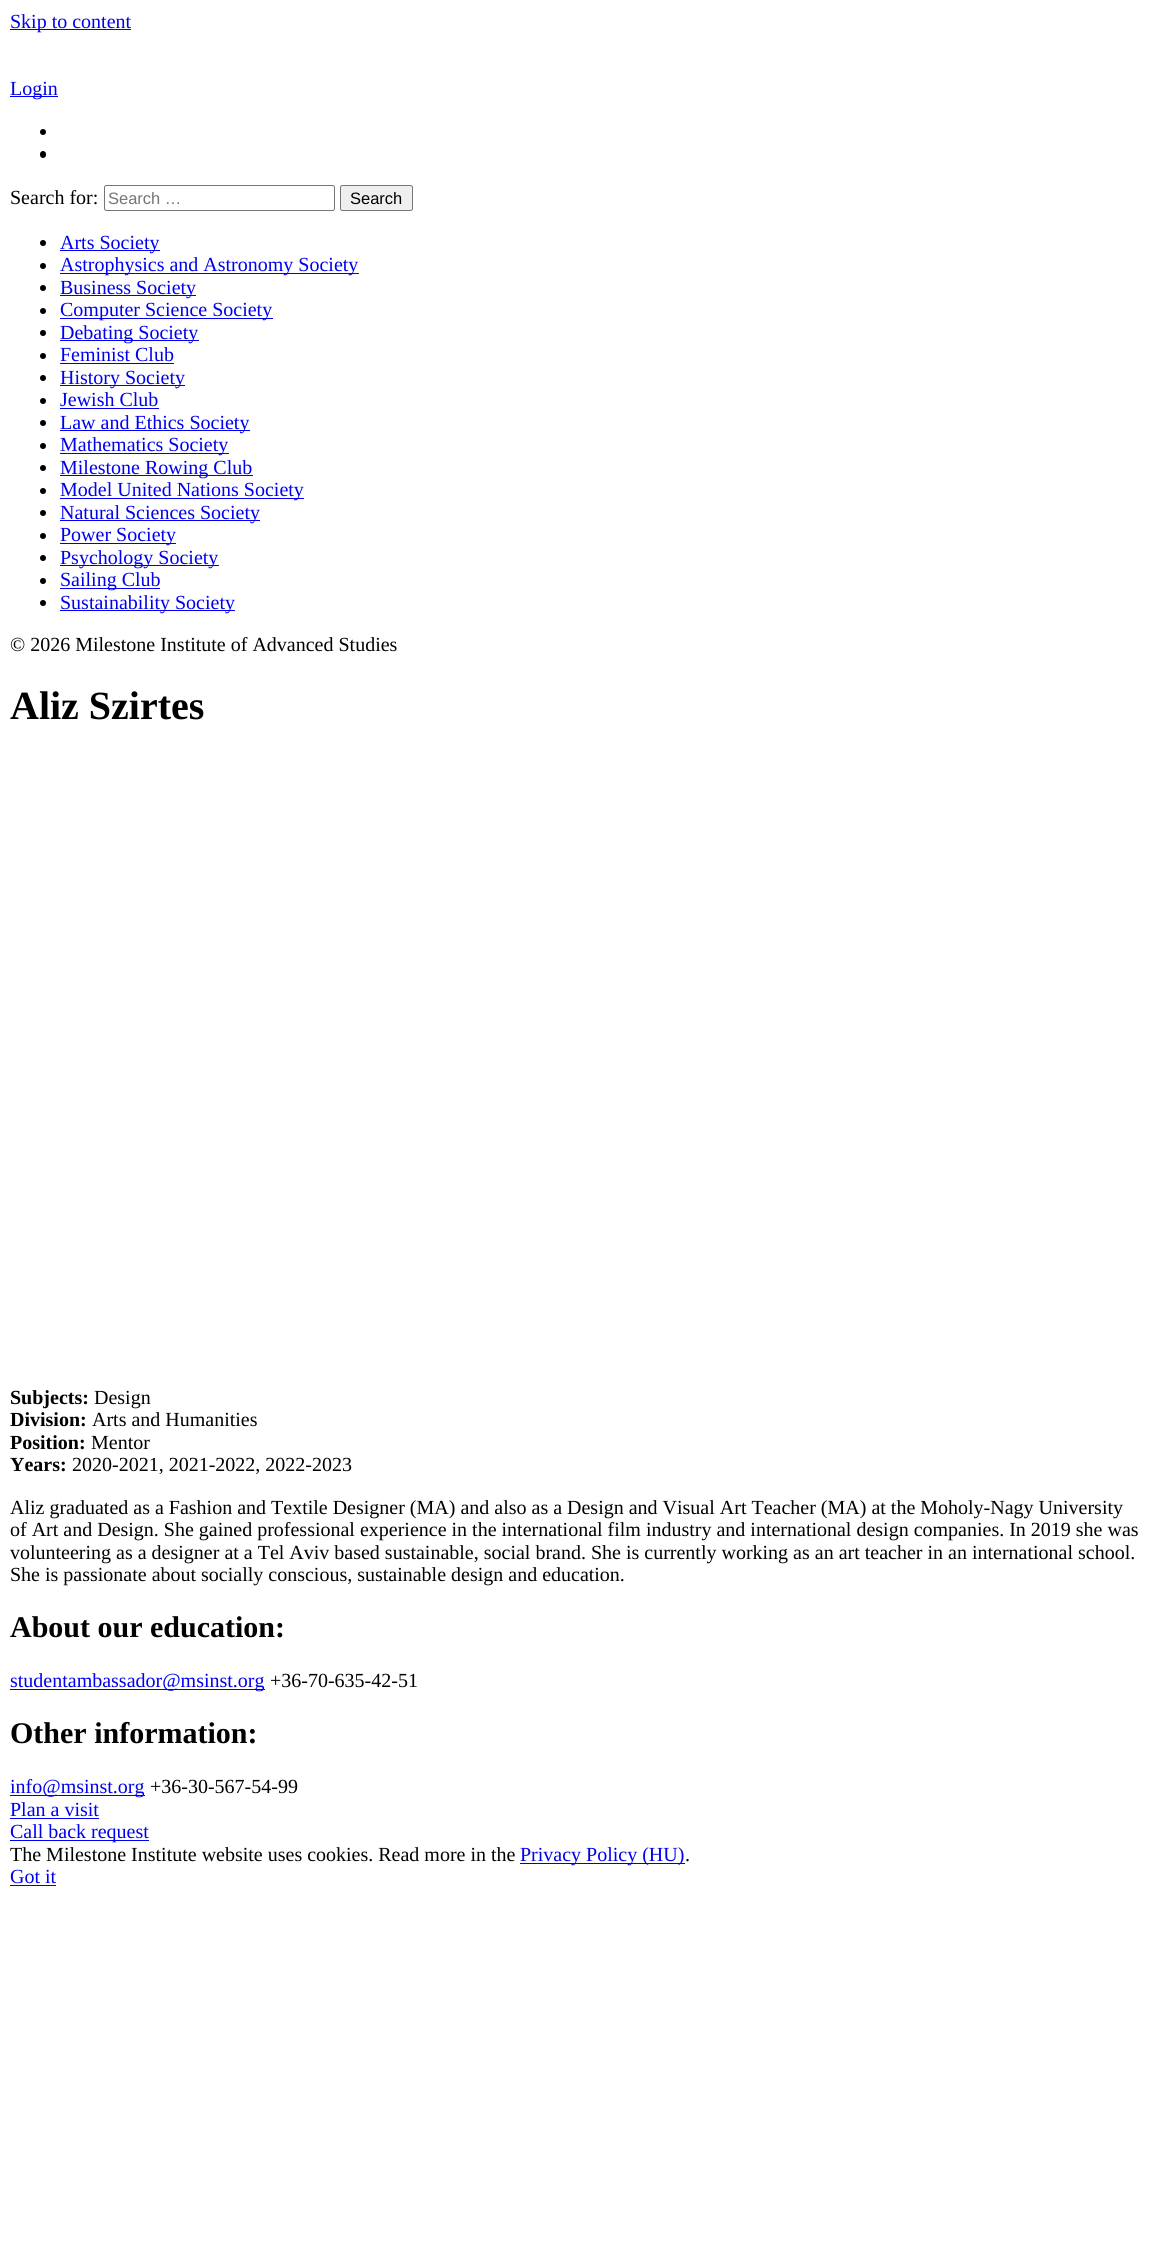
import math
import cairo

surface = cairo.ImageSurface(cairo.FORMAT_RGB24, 1150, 2256)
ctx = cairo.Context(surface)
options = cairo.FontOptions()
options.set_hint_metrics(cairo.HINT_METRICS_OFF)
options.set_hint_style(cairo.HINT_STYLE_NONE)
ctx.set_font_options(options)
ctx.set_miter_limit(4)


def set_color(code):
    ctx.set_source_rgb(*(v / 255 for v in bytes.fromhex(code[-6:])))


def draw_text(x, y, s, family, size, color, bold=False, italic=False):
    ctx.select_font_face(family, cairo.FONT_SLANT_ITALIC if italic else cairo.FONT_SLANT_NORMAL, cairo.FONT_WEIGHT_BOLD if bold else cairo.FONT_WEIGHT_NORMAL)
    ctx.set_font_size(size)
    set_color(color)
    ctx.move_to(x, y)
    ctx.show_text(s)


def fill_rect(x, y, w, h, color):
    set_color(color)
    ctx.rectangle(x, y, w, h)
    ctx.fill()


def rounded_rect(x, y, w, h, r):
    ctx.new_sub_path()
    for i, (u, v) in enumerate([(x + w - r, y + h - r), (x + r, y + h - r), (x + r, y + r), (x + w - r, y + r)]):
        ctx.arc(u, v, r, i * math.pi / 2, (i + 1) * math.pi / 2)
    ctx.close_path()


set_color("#ffffff")
ctx.paint()
fill_rect(10, 29, 121, 1, "#0000ee")
draw_text(10, 28, "Skip to content", "Liberation Serif", 20, "#0000ee")
fill_rect(10, 96, 48, 1, "#0000ee")
draw_text(10, 95, "Login", "Liberation Serif", 20, "#0000ee")
set_color("#000000")
ctx.new_path()
ctx.arc(43, 132, 3, 0, 2 * math.pi)
ctx.fill()
rounded_rect(40, 151, 6, 7, 3)
ctx.fill()
draw_text(10, 204, "Search for:", "Liberation Serif", 20, "#000000")
rounded_rect(104.5, 185.5, 230, 25, 2)
set_color("#767676")
ctx.set_line_width(1)
ctx.stroke()
draw_text(108, 204, "Search …", "Liberation Sans", 16.5, "#757575")
set_color("#efefef")
rounded_rect(340.5, 185.5, 72, 25, 2)
ctx.fill_preserve()
set_color("#767676")
ctx.stroke()
draw_text(350, 204, "Search", "Liberation Sans", 16.5, "#000000")
ctx.new_path()
ctx.arc(43, 243, 3, 0, 2 * math.pi)
ctx.fill()
fill_rect(60, 250, 100, 1, "#0000ee")
draw_text(60, 249, "Arts Society", "Liberation Serif", 20, "#0000ee")
set_color("#000000")
ctx.new_path()
ctx.arc(43, 266, 3, 0, 2 * math.pi)
ctx.fill()
fill_rect(60, 273, 299, 1, "#0000ee")
draw_text(60, 271, "Astrophysics and Astronomy Society", "Liberation Serif", 20, "#0000ee")
set_color("#000000")
ctx.new_path()
ctx.arc(43, 288, 3, 0, 2 * math.pi)
ctx.fill()
fill_rect(60, 295, 136, 1, "#0000ee")
draw_text(60, 294, "Business Society", "Liberation Serif", 20, "#0000ee")
set_color("#000000")
ctx.new_path()
ctx.arc(43, 311, 3, 0, 2 * math.pi)
ctx.fill()
fill_rect(60, 318, 213, 1, "#0000ee")
draw_text(60, 316, "Computer Science Society", "Liberation Serif", 20, "#0000ee")
set_color("#000000")
ctx.new_path()
ctx.arc(43, 333, 3, 0, 2 * math.pi)
ctx.fill()
fill_rect(60, 340, 139, 1, "#0000ee")
draw_text(60, 339, "Debating Society", "Liberation Serif", 20, "#0000ee")
set_color("#000000")
ctx.new_path()
ctx.arc(43, 356, 3, 0, 2 * math.pi)
ctx.fill()
draw_text(60, 361, "Feminist Club", "Liberation Serif", 20, "#0000ee")
fill_rect(60, 363, 114, 1, "#0000ee")
set_color("#000000")
ctx.new_path()
ctx.arc(43, 378, 3, 0, 2 * math.pi)
ctx.fill()
fill_rect(60, 385, 125, 1, "#0000ee")
draw_text(60, 384, "History Society", "Liberation Serif", 20, "#0000ee")
set_color("#000000")
ctx.new_path()
ctx.arc(43, 401, 3, 0, 2 * math.pi)
ctx.fill()
draw_text(60, 406, "Jewish Club", "Liberation Serif", 20, "#0000ee")
fill_rect(60, 408, 99, 1, "#0000ee")
set_color("#000000")
ctx.new_path()
ctx.arc(43, 423, 3, 0, 2 * math.pi)
ctx.fill()
fill_rect(60, 430, 190, 1, "#0000ee")
draw_text(60, 429, "Law and Ethics Society", "Liberation Serif", 20, "#0000ee")
set_color("#000000")
ctx.new_path()
ctx.arc(43, 446, 3, 0, 2 * math.pi)
ctx.fill()
fill_rect(60, 453, 169, 1, "#0000ee")
draw_text(60, 451, "Mathematics Society", "Liberation Serif", 20, "#0000ee")
set_color("#000000")
ctx.new_path()
ctx.arc(43, 468, 3, 0, 2 * math.pi)
ctx.fill()
fill_rect(60, 475, 193, 1, "#0000ee")
draw_text(60, 474, "Milestone Rowing Club", "Liberation Serif", 20, "#0000ee")
set_color("#000000")
ctx.new_path()
ctx.arc(43, 491, 3, 0, 2 * math.pi)
ctx.fill()
fill_rect(60, 498, 244, 1, "#0000ee")
draw_text(60, 496, "Model United Nations Society", "Liberation Serif", 20, "#0000ee")
set_color("#000000")
ctx.new_path()
ctx.arc(43, 513, 3, 0, 2 * math.pi)
ctx.fill()
fill_rect(60, 520, 200, 1, "#0000ee")
draw_text(60, 519, "Natural Sciences Society", "Liberation Serif", 20, "#0000ee")
set_color("#000000")
ctx.new_path()
ctx.arc(43, 536, 3, 0, 2 * math.pi)
ctx.fill()
fill_rect(60, 543, 116, 1, "#0000ee")
draw_text(60, 541, "Power Society", "Liberation Serif", 20, "#0000ee")
set_color("#000000")
ctx.new_path()
ctx.arc(43, 558, 3, 0, 2 * math.pi)
ctx.fill()
fill_rect(60, 565, 159, 1, "#0000ee")
draw_text(60, 564, "Psychology Society", "Liberation Serif", 20, "#0000ee")
set_color("#000000")
ctx.new_path()
ctx.arc(43, 581, 3, 0, 2 * math.pi)
ctx.fill()
fill_rect(60, 588, 100, 1, "#0000ee")
draw_text(60, 586, "Sailing Club", "Liberation Serif", 20, "#0000ee")
set_color("#000000")
ctx.new_path()
ctx.arc(43, 603, 3, 0, 2 * math.pi)
ctx.fill()
fill_rect(60, 610, 175, 1, "#0000ee")
draw_text(60, 609, "Sustainability Society", "Liberation Serif", 20, "#0000ee")
draw_text(10, 651, "© 2026 Milestone Institute of Advanced Studies", "Liberation Serif", 20, "#000000")
draw_text(10, 719, "Aliz Szirtes", "Liberation Serif", 40, "#000000", bold=True)
draw_text(10, 1404, "Subjects:", "Liberation Serif", 20, "#000000", bold=True)
draw_text(94, 1404, "Design", "Liberation Serif", 20, "#000000")
draw_text(10, 1426, "Division:", "Liberation Serif", 20, "#000000", bold=True)
draw_text(92, 1426, "Arts and Humanities", "Liberation Serif", 20, "#000000")
draw_text(10, 1449, "Position:", "Liberation Serif", 20, "#000000", bold=True)
draw_text(91, 1449, "Mentor", "Liberation Serif", 20, "#000000")
draw_text(10, 1471, "Years:", "Liberation Serif", 20, "#000000", bold=True)
draw_text(72, 1471, "2020-2021, 2021-2022, 2022-2023", "Liberation Serif", 20, "#000000")
draw_text(10, 1514, "Aliz graduated as a Fashion and Textile Designer (MA) and also as a Design and Visual Art Teacher (MA) at the Moholy-Nagy University", "Liberation Serif", 20, "#000000")
draw_text(10, 1536, "of Art and Design. She gained professional experience in the international film industry and international design companies. In 2019 she was", "Liberation Serif", 20, "#000000")
draw_text(10, 1559, "volunteering as a designer at a Tel Aviv based sustainable, social brand. She is currently working as an art teacher in an international school.", "Liberation Serif", 20, "#000000")
draw_text(10, 1581, "She is passionate about socially conscious, sustainable design and education.", "Liberation Serif", 20, "#000000")
draw_text(10, 1637, "About our education:", "Liberation Serif", 30, "#000000", bold=True)
fill_rect(10, 1689, 255, 1, "#0000ee")
draw_text(10, 1687, "studentambassador@msinst.org", "Liberation Serif", 20, "#0000ee")
draw_text(270, 1687, "+36-70-635-42-51", "Liberation Serif", 20, "#000000")
draw_text(10, 1743, "Other information:", "Liberation Serif", 30, "#000000", bold=True)
fill_rect(10, 1795, 135, 1, "#0000ee")
draw_text(10, 1793, "info@msinst.org", "Liberation Serif", 20, "#0000ee")
draw_text(150, 1793, "+36-30-567-54-99", "Liberation Serif", 20, "#000000")
draw_text(10, 1816, "Plan a visit", "Liberation Serif", 20, "#0000ee")
fill_rect(10, 1818, 89, 1, "#0000ee")
fill_rect(10, 1840, 139, 1, "#0000ee")
draw_text(10, 1838, "Call back request", "Liberation Serif", 20, "#0000ee")
draw_text(10, 1861, "The Milestone Institute website uses cookies. Read more in the", "Liberation Serif", 20, "#000000")
fill_rect(520, 1863, 165, 1, "#0000ee")
draw_text(520, 1861, "Privacy Policy (HU)", "Liberation Serif", 20, "#0000ee")
draw_text(685, 1861, ".", "Liberation Serif", 20, "#000000")
draw_text(10, 1883, "Got it", "Liberation Serif", 20, "#0000ee")
fill_rect(10, 1885, 46, 1, "#0000ee")
surface.write_to_png("output.png")
